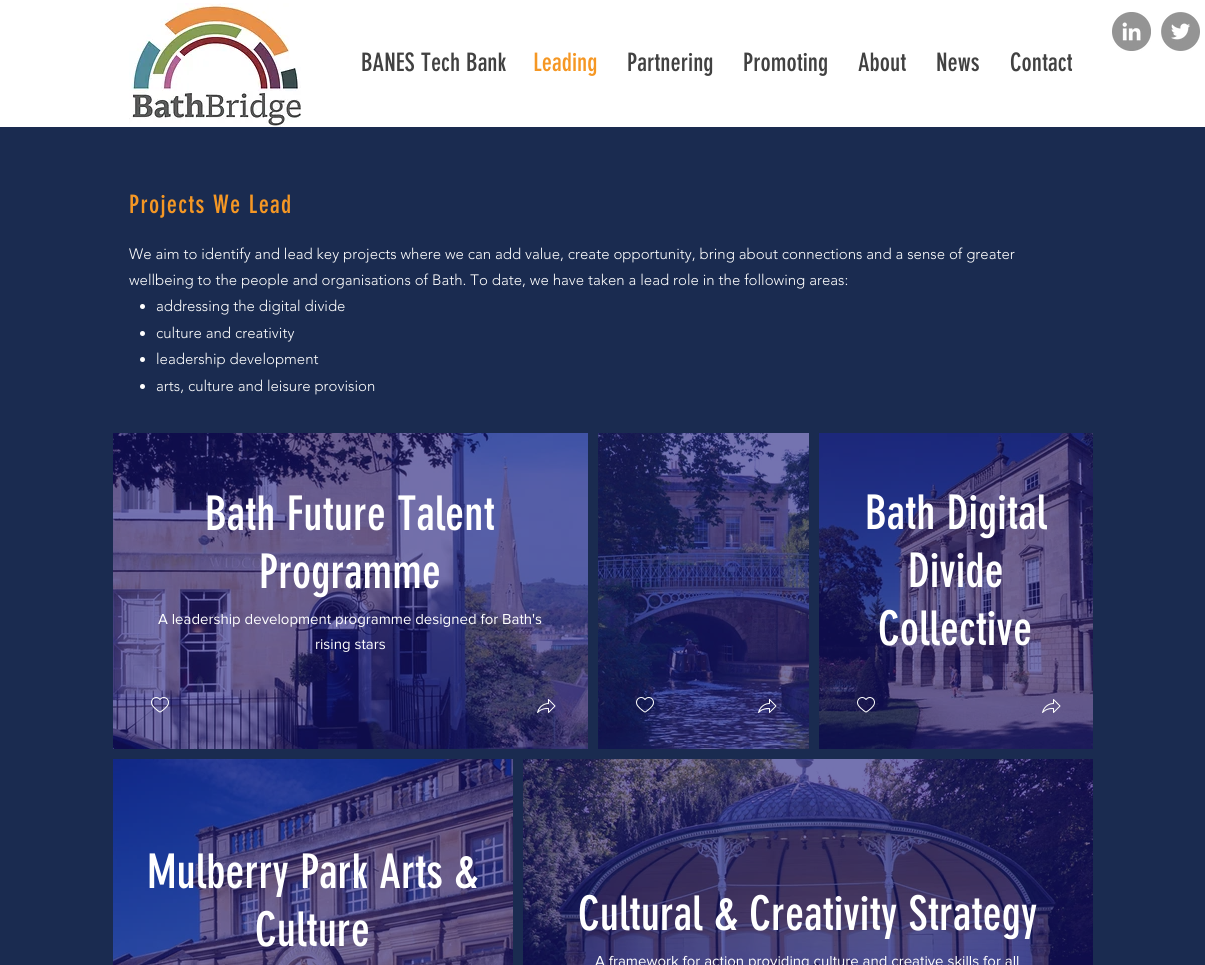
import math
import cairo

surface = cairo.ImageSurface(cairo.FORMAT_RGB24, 1205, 965)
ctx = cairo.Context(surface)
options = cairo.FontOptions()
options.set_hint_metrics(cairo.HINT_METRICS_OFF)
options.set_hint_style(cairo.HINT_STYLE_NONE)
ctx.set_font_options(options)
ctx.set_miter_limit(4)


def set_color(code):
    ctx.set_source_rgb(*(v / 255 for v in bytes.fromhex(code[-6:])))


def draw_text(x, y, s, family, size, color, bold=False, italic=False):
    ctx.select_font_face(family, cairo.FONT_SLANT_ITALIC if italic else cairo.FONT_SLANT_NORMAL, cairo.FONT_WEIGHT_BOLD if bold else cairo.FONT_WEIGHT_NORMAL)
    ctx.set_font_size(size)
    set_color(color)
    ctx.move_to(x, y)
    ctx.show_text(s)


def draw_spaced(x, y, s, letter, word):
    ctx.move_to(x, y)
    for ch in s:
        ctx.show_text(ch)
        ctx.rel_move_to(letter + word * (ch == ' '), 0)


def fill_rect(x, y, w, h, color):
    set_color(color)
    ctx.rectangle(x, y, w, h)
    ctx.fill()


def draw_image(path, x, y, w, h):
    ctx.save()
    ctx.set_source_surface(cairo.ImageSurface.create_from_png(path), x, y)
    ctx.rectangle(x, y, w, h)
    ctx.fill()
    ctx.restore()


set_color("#1a2b50")
ctx.paint()
fill_rect(0, 0, 1205, 127, "#ffffff")
draw_image("assets/img1.png", 129, 3, 172, 124)
draw_image("assets/img2.png", 1112, 12, 39, 39)
draw_image("assets/img3.png", 1161, 12, 39, 39)
draw_text(361, 71, "BANES Tech Bank", "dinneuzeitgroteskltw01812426", 25, "#414141")
draw_text(533, 71, "Leading", "dinneuzeitgroteskltw01812426", 25, "#f59724")
draw_text(627, 71, "Partnering", "dinneuzeitgroteskltw01812426", 25, "#414141")
draw_text(743, 71, "Promoting", "dinneuzeitgroteskltw01812426", 25, "#414141")
draw_text(858, 71, "About", "dinneuzeitgroteskltw01812426", 25, "#414141")
draw_text(936, 71, "News", "dinneuzeitgroteskltw01812426", 25, "#414141")
draw_text(1010, 71, "Contact", "dinneuzeitgroteskltw01812426", 25, "#414141")
set_color("#f59724")
draw_spaced(129, 213, "Projects We Lead", 1.25, 0)
draw_text(129, 259, "We aim to identify and lead key projects where we can add value, create opportunity, bring about connections and a sense of greater", "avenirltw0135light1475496 Light", 15, "#ffffff")
draw_text(129, 285, "wellbeing to the people and organisations of Bath. To date, we have taken a lead role in the following areas:", "avenirltw0135light1475496 Light", 15, "#ffffff")
ctx.new_path()
ctx.arc(142.5, 306.5, 2.5, 0, 2 * math.pi)
ctx.fill()
draw_text(156, 311, "addressing the digital divide", "avenirltw0135light1475496 Light", 15, "#ffffff")
ctx.new_path()
ctx.arc(142.5, 333.5, 2.5, 0, 2 * math.pi)
ctx.fill()
draw_text(156, 338, "culture and creativity", "avenirltw0135light1475496 Light", 15, "#ffffff")
ctx.new_path()
ctx.arc(142.5, 359.5, 2.5, 0, 2 * math.pi)
ctx.fill()
draw_text(156, 364, "leadership development", "avenirltw0135light1475496 Light", 15, "#ffffff")
ctx.new_path()
ctx.arc(142.5, 386.5, 2.5, 0, 2 * math.pi)
ctx.fill()
draw_text(156, 391, "arts, culture and leisure provision", "avenirltw0135light1475496 Light", 15, "#ffffff")
draw_image("assets/img4.png", 113, 433, 475, 316)
draw_text(205, 530, "Bath Future Talent", "dinneuzeitgroteskltw01812426", 47, "#ffffff")
draw_text(259, 588, "Programme", "dinneuzeitgroteskltw01812426", 47, "#ffffff")
draw_text(158, 624, "A leadership development programme designed for Bath's", "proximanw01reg", 15, "#ffffff")
draw_text(315, 649, "rising stars", "proximanw01reg", 15, "#ffffff")
draw_image("assets/img5.png", 151, 697, 18, 16)
draw_image("assets/img6.png", 537, 699, 19, 14)
draw_image("assets/img7.png", 598, 433, 211, 316)
draw_image("assets/img8.png", 636, 697, 18, 16)
draw_image("assets/img9.png", 758, 699, 19, 14)
draw_image("assets/img10.png", 819, 433, 274, 316)
draw_text(865, 529, "Bath Digital", "dinneuzeitgroteskltw01812426", 47, "#ffffff")
draw_text(908, 587, "Divide", "dinneuzeitgroteskltw01812426", 47, "#ffffff")
draw_text(878, 645, "Collective", "dinneuzeitgroteskltw01812426", 47, "#ffffff")
draw_image("assets/img11.png", 857, 697, 18, 16)
draw_image("assets/img12.png", 1042, 699, 19, 14)
draw_image("assets/img13.png", 113, 759, 400, 206)
draw_text(147, 888, "Mulberry Park Arts &", "dinneuzeitgroteskltw01812426", 47, "#ffffff")
draw_text(255, 946, "Culture", "dinneuzeitgroteskltw01812426", 47, "#ffffff")
draw_image("assets/img14.png", 523, 759, 570, 206)
draw_text(578, 930, "Cultural & Creativity Strategy", "dinneuzeitgroteskltw01812426", 47, "#ffffff")
draw_text(595, 966, "A framework for action providing culture and creative skills for all", "proximanw01reg", 15, "#ffffff")
surface.write_to_png("output.png")
